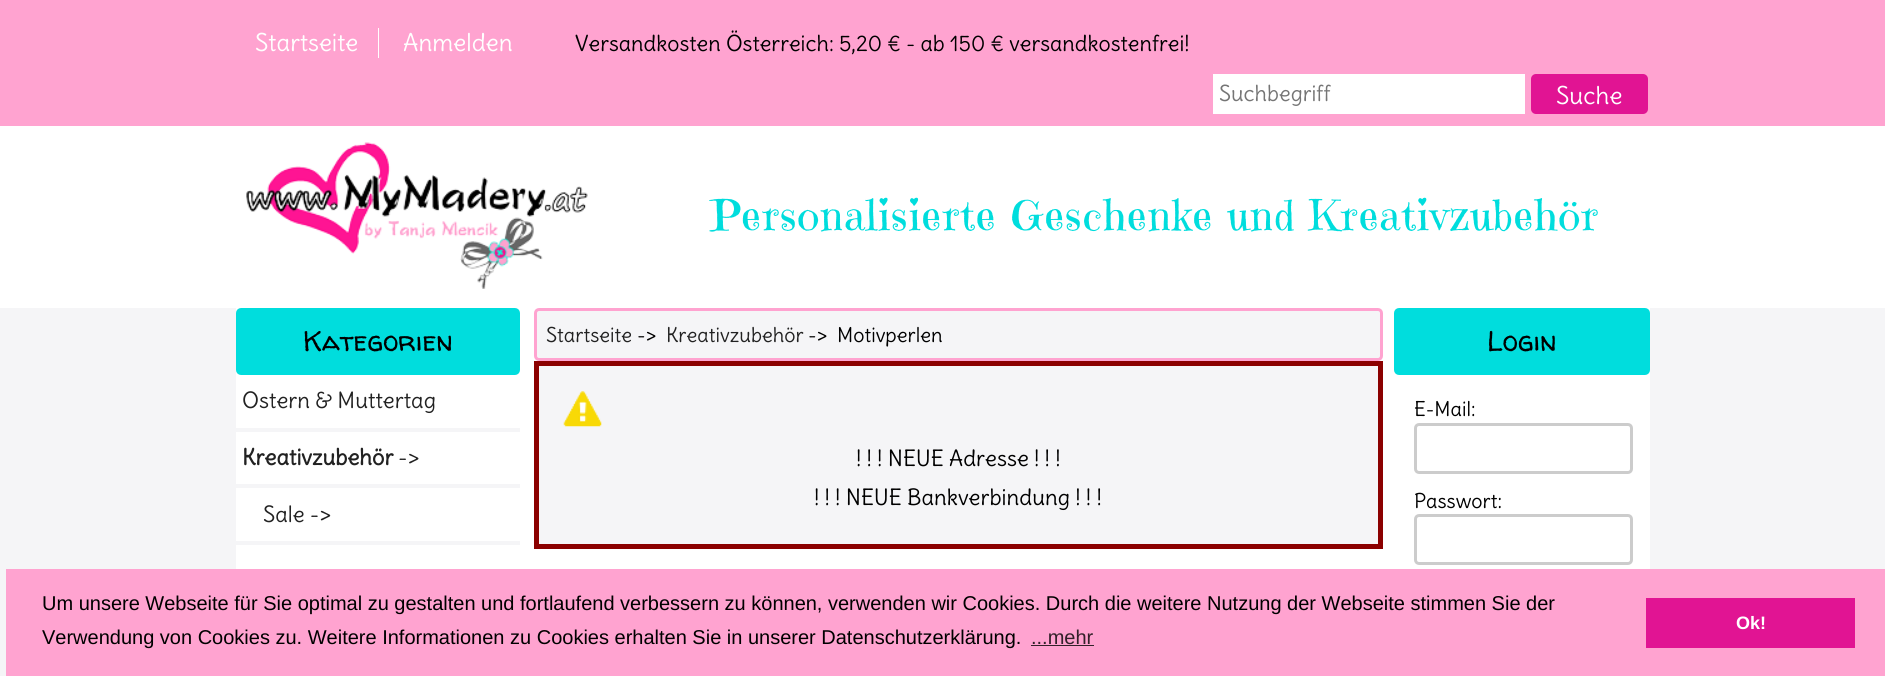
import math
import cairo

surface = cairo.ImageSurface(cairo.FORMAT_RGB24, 1885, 676)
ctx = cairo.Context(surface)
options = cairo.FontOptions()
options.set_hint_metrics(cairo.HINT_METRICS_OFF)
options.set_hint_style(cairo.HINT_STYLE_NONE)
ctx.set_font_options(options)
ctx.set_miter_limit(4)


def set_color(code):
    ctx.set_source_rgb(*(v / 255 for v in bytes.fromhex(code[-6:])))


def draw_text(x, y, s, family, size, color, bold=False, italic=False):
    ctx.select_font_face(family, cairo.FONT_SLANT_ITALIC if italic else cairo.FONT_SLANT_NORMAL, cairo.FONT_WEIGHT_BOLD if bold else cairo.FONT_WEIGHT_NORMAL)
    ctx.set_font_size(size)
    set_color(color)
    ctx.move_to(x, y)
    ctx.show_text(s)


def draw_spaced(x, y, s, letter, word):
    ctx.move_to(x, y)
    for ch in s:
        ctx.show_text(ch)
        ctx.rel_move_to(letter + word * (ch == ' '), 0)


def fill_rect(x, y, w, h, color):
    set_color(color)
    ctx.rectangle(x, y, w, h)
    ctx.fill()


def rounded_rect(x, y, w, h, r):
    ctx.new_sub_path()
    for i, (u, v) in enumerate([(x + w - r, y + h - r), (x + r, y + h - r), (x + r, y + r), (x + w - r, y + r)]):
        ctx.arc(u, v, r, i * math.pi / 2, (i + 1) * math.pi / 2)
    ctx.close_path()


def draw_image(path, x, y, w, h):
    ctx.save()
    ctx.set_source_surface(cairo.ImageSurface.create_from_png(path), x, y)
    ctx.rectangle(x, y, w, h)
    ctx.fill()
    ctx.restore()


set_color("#f5f5f7")
ctx.paint()
fill_rect(0, 126, 1885, 182, "#ffffff")
fill_rect(0, 0, 1885, 126, "#ffa3d0")
draw_text(255, 51, "Startseite", "Delius", 24, "#ffffff")
fill_rect(378, 28, 1, 30, "#ffffff")
draw_text(403, 51, "Anmelden", "Delius", 24, "#ffffff")
draw_text(575, 51, "Versandkosten Österreich: 5,20 € - ab 150 € versandkostenfrei!", "Delius", 21.6, "#000000")
fill_rect(1213, 74, 312, 40, "#ffffff")
draw_text(1219, 101, "Suchbegriff", "Delius", 21.6, "#757575")
set_color("#e11493")
rounded_rect(1531, 74, 117, 40, 5)
ctx.fill()
draw_text(1556, 104, "Suche", "Delius", 24, "#ffffff")
draw_image("assets/img1.png", 246, 142, 342, 147)
ctx.select_font_face("Emilys Candy")
ctx.set_font_size(42)
set_color("#00dddd")
draw_spaced(711, 230, "Personalisierte Geschenke und Kreativzubehör", 1.25, 0)
fill_rect(236, 308, 1414, 261, "#ffffff")
set_color("#00dddd")
rounded_rect(237.5, 309.5, 281, 64, 3.5)
ctx.fill_preserve()
ctx.set_line_width(3)
ctx.stroke()
draw_text(303, 351, "Kategorien", "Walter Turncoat", 28, "#000000")
fill_rect(236, 428, 284, 4, "#f5f5f7")
draw_text(242, 408, "Ostern & Muttertag", "Delius", 22, "#222222")
fill_rect(236, 484, 284, 4, "#f5f5f7")
draw_text(242, 465, "Kreativzubehör", "Delius", 22, "#222222", bold=True)
draw_text(398, 465, "->", "Delius", 22, "#222222")
fill_rect(236, 541, 284, 4, "#f5f5f7")
draw_text(263, 522, "Sale ->", "Delius", 22, "#222222")
set_color("#f5f5f7")
rounded_rect(535.5, 309.5, 846, 50, 3.5)
ctx.fill_preserve()
set_color("#ffa3d0")
ctx.stroke()
draw_text(546, 342, "Startseite", "Delius", 20, "#222222")
draw_text(637, 342, "->", "Delius", 20, "#000000")
draw_text(666, 342, "Kreativzubehör", "Delius", 20, "#222222")
draw_text(808, 342, "->  Motivperlen", "Delius", 20, "#000000")
set_color("#f5f5f7")
ctx.rectangle(536.5, 363.5, 844, 183)
ctx.fill_preserve()
set_color("#8b0000")
ctx.set_line_width(5)
ctx.stroke()
draw_image("assets/img2.png", 563, 391, 39, 36)
draw_text(856, 466, "! ! ! NEUE Adresse ! ! !", "Delius", 22, "#000000")
draw_text(814, 505, "! ! ! NEUE Bankverbindung ! ! !", "Delius", 22, "#000000")
set_color("#00dddd")
rounded_rect(1395.5, 309.5, 253, 64, 3.5)
ctx.fill_preserve()
ctx.set_line_width(3)
ctx.stroke()
draw_text(1487, 351, "Login", "Walter Turncoat", 28, "#000000")
draw_text(1414, 416, "E-Mail:", "Delius", 20, "#000000")
rounded_rect(1415.5, 424.5, 216, 48, 3.5)
set_color("#cccccc")
ctx.stroke()
draw_text(1414, 508, "Passwort:", "Delius", 20, "#000000")
rounded_rect(1415.5, 515.5, 216, 48, 3.5)
set_color("#cccccc")
ctx.stroke()
fill_rect(6, 569, 1879, 107, "#ffa3d0")
draw_text(42, 610, "Um unsere Webseite für Sie optimal zu gestalten und fortlaufend verbessern zu können, verwenden wir Cookies. Durch die weitere Nutzung der Webseite stimmen Sie der", "Liberation Sans", 20, "#000000")
draw_text(42, 644, "Verwendung von Cookies zu. Weitere Informationen zu Cookies erhalten Sie in unserer Datenschutzerklärung.", "Liberation Sans", 20, "#000000")
draw_text(1031, 644, "...mehr", "Liberation Sans", 20, "#33212a")
fill_rect(1031, 645, 63, 1, "#33212a")
fill_rect(1646, 598, 209, 50, "#e11493")
draw_text(1736, 629, "Ok!", "Liberation Sans", 18, "#ffffff", bold=True)
surface.write_to_png("output.png")
